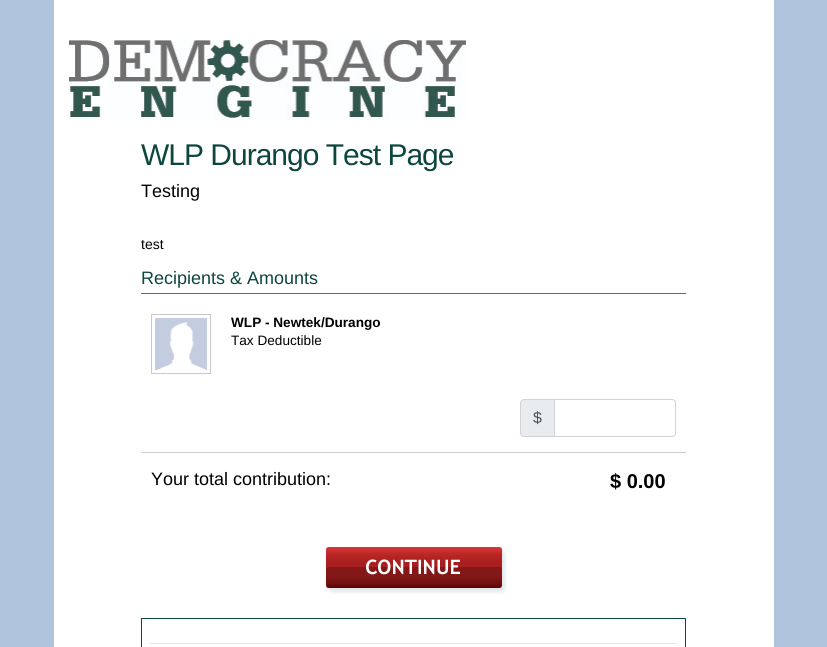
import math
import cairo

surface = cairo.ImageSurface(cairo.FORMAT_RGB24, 827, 647)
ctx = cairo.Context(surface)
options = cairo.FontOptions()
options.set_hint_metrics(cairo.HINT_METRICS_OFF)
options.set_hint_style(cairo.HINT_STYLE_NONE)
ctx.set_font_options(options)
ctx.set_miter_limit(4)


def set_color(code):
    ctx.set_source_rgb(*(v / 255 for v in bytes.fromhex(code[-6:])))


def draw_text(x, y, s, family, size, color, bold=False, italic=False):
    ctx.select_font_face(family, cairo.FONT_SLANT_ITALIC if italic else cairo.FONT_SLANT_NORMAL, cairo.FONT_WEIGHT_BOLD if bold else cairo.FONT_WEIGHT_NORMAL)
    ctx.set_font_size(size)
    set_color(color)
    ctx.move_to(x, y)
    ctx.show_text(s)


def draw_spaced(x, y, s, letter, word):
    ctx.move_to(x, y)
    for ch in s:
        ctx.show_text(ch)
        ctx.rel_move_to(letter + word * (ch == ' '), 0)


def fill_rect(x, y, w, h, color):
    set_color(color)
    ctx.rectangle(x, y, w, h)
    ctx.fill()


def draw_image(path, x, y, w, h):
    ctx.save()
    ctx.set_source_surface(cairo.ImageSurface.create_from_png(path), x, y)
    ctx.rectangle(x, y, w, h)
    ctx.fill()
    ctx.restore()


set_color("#b0c4de")
ctx.paint()
fill_rect(54, 0, 720, 647, "#ffffff")
draw_image("assets/img1.png", 69, 40, 399, 80)
ctx.select_font_face("Liberation Sans")
ctx.set_font_size(30)
set_color("#0d463f")
draw_spaced(141, 165, "WLP Durango Test Page", -1, 0)
draw_text(141, 197, "Testing", "Liberation Sans", 18, "#000000")
draw_text(141, 249, "test", "Liberation Sans", 14, "#000000")
fill_rect(141, 293, 545, 1, "#666666")
draw_text(141, 284, "Recipients & Amounts", "Liberation Sans", 18, "#0d463f")
ctx.rectangle(151.5, 314.5, 59, 59)
set_color("#c9c9c9")
ctx.set_line_width(1)
ctx.stroke()
draw_image("assets/img2.png", 155, 318, 52, 52)
draw_text(231, 327, "WLP - Newtek/Durango", "Liberation Sans", 13.6, "#000000", bold=True)
draw_text(231, 345, "Tax Deductible", "Liberation Sans", 13.6, "#000000")
set_color("#e9ecef")
ctx.new_path()
ctx.move_to(524, 399.5)
ctx.line_to(554.5, 399.5)
ctx.line_to(554.5, 436.5)
ctx.line_to(524, 436.5)
ctx.curve_to(522, 436.5, 520.5, 435, 520.5, 433)
ctx.line_to(520.5, 403)
ctx.curve_to(520.5, 401, 522, 399.5, 524, 399.5)
ctx.close_path()
ctx.fill_preserve()
set_color("#ced4da")
ctx.stroke()
draw_text(533, 423, "$", "Liberation Sans", 16, "#495057")
ctx.new_path()
ctx.move_to(554.5, 399.5)
ctx.line_to(672, 399.5)
ctx.curve_to(674, 399.5, 675.5, 401, 675.5, 403)
ctx.line_to(675.5, 433)
ctx.curve_to(675.5, 435, 674, 436.5, 672, 436.5)
ctx.line_to(554.5, 436.5)
ctx.close_path()
set_color("#ced4da")
ctx.stroke()
fill_rect(141, 452, 545, 1, "#cdcdcd")
draw_text(151, 485, "Your total contribution:", "Liberation Sans", 18, "#000000")
draw_text(610, 488, "$ 0.00", "Liberation Sans", 20, "#000000", bold=True)
draw_image("assets/img3.png", 326, 547, 181, 47)
ctx.rectangle(141.5, 618.5, 544, 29)
set_color("#0d463f")
ctx.stroke()
fill_rect(150, 643, 527, 1, "#e6e6e6")
surface.write_to_png("output.png")
